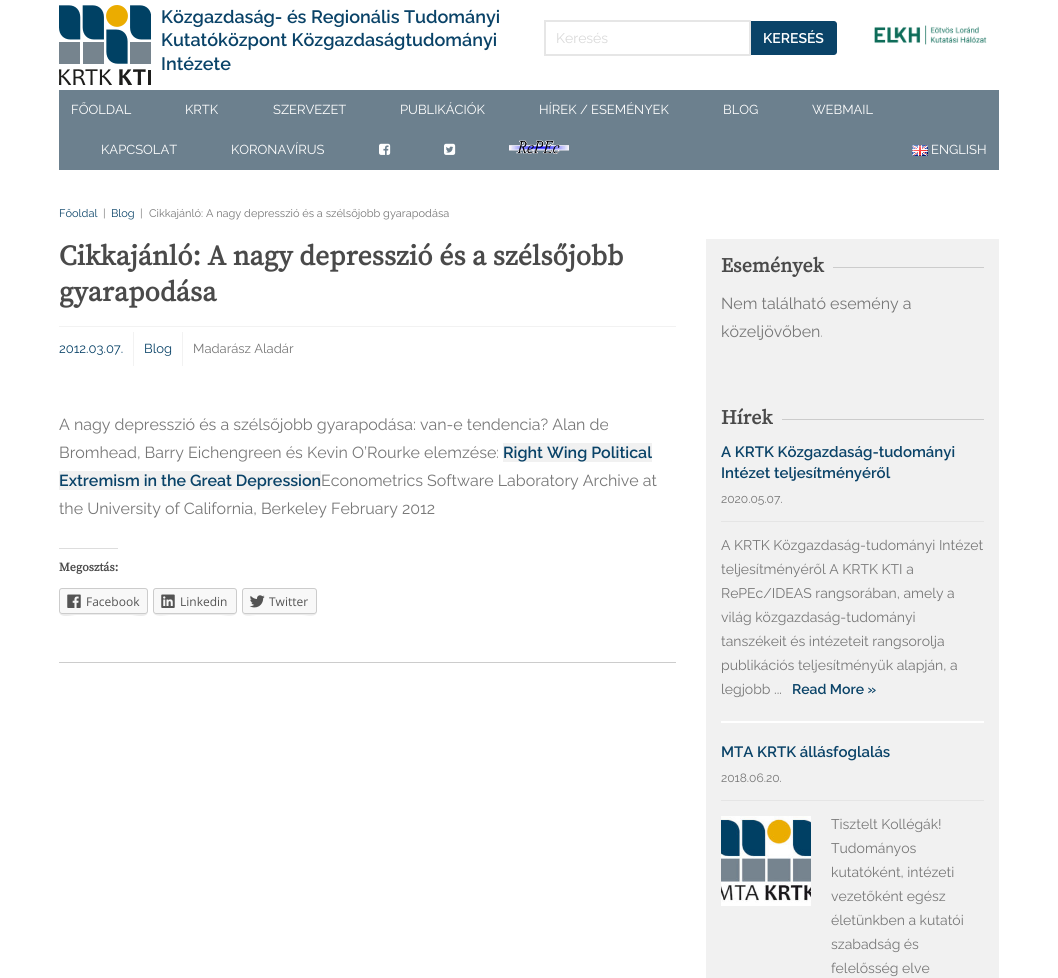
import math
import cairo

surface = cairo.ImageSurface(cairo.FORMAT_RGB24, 1058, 978)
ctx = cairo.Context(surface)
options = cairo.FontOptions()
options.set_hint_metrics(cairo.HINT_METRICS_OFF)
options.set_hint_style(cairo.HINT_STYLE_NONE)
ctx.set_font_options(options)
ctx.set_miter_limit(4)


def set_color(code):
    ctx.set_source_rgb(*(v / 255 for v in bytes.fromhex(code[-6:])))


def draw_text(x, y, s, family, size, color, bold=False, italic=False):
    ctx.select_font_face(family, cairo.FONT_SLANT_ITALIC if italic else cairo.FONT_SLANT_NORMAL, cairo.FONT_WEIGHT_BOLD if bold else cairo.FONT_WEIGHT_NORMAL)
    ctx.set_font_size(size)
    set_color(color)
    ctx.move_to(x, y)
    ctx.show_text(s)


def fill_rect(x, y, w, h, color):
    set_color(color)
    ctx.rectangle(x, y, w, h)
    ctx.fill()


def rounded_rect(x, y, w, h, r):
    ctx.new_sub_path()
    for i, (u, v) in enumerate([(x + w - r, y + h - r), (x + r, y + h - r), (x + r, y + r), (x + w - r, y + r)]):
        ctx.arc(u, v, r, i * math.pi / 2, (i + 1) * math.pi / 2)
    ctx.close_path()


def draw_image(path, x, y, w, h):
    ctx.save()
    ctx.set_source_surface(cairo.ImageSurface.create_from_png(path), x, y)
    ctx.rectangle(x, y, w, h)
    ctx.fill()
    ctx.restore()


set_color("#ffffff")
ctx.paint()
draw_image("assets/img1.png", 59, 5, 92, 80)
draw_text(161, 23, "Közgazdaság- és Regionális Tudományi", "Raleway SemiBold", 18, "#0a4368")
draw_text(161, 46, "Kutatóközpont Közgazdaságtudományi", "Raleway SemiBold", 18, "#0a4368")
draw_text(161, 70, "Intézete", "Raleway SemiBold", 18, "#0a4368")
ctx.new_path()
ctx.move_to(750, 21)
ctx.line_to(834, 21)
ctx.curve_to(835.5, 21, 837, 22.5, 837, 24)
ctx.line_to(837, 52)
ctx.curve_to(837, 53.5, 835.5, 55, 834, 55)
ctx.line_to(750, 55)
ctx.close_path()
ctx.fill()
ctx.rectangle(545, 21, 205, 34)
set_color("#e6e6e6")
ctx.stroke()
draw_text(556, 43, "Keresés", "Raleway", 14, "#d9d9d9")
draw_text(763, 43, "KERESÉS", "Raleway SemiBold", 14, "#ffffff")
draw_image("assets/img2.png", 874, 25, 113, 20)
fill_rect(59, 90, 940, 80, "#6c808e")
draw_text(71, 114, "FŐOLDAL", "Raleway", 13, "#ffffff")
draw_text(185, 114, "KRTK", "Raleway", 13, "#ffffff")
draw_text(273, 114, "SZERVEZET", "Raleway", 13, "#ffffff")
draw_text(400, 114, "PUBLIKÁCIÓK", "Raleway", 13, "#ffffff")
draw_text(539, 114, "HÍREK / ESEMÉNYEK", "Raleway", 13, "#ffffff")
draw_text(723, 114, "BLOG", "Raleway", 13, "#ffffff")
draw_text(812, 114, "WEBMAIL", "Raleway", 13, "#ffffff")
draw_text(101, 154, "KAPCSOLAT", "Raleway", 13, "#ffffff")
draw_text(231, 154, "KORONAVÍRUS", "Raleway", 13, "#ffffff")
draw_image("assets/img3.png", 379, 143, 12, 12)
draw_image("assets/img4.png", 444, 143, 12, 12)
draw_image("assets/img5.png", 509, 140, 60, 14)
draw_image("assets/img6.png", 912, 145, 16, 11)
draw_text(931, 154, "ENGLISH", "Raleway", 13, "#ffffff")
draw_text(59, 217, "Főoldal", "Raleway", 11, "#0a4368")
draw_text(103, 217, "|", "Raleway", 11, "#777777")
draw_text(111, 217, "Blog", "Raleway", 11, "#0a4368")
draw_text(140, 217, "|", "Raleway", 11, "#777777")
draw_text(149, 217, "Cikkajánló: A nagy depresszió és a szélsőjobb gyarapodása", "Raleway", 11, "#777777")
fill_rect(59, 326, 617, 1, "#f2f2f2")
draw_text(59, 265, "Cikkajánló: A nagy depresszió és a szélsőjobb", "Source Serif Pro", 28, "#4a4a4a", bold=True)
draw_text(59, 301, "gyarapodása", "Source Serif Pro", 28, "#4a4a4a", bold=True)
fill_rect(133, 332, 1, 34, "#f2f2f2")
draw_text(59, 353, "2012.03.07.", "Raleway", 13, "#0a4368")
fill_rect(182, 332, 1, 34, "#f2f2f2")
draw_text(144, 353, "Blog", "Raleway", 13, "#0a4368")
draw_text(193, 353, "Madarász Aladár", "Raleway", 13, "#777777")
fill_rect(59, 662, 617, 1, "#cccccc")
draw_text(59, 430, "A nagy depresszió és a szélsőjobb gyarapodása: van-e tendencia? Alan de", "Raleway", 16, "#777777")
draw_text(59, 458, "Bromhead, Barry Eichengreen és Kevin O’Rourke elemzése:", "Raleway", 16, "#777777")
fill_rect(503, 443, 149, 19, "#f1f1f1")
draw_text(503, 458, "Right Wing Political", "Raleway SemiBold", 16, "#0a4368")
fill_rect(59, 471, 262, 19, "#f1f1f1")
draw_text(59, 486, "Extremism in the Great Depression", "Raleway SemiBold", 16, "#0a4368")
draw_text(321, 486, "Econometrics Software Laboratory Archive at", "Raleway", 16, "#777777")
draw_text(59, 514, "the University of California, Berkeley February 2012", "Raleway", 16, "#777777")
fill_rect(59, 548, 59, 1, "#dddddd")
draw_text(59, 571, "Megosztás:", "Source Serif Pro", 12, "#4a4a4a", bold=True)
set_color("#ebebeb")
ctx.new_path()
ctx.move_to(59, 611)
ctx.curve_to(59, 619, 72, 615, 76, 615)
ctx.line_to(131, 615)
ctx.curve_to(135, 615, 148, 619, 148, 611)
ctx.curve_to(148, 613, 147, 614, 145, 614)
ctx.line_to(62, 614)
ctx.curve_to(60, 614, 59, 613, 59, 611)
ctx.close_path()
ctx.fill()
set_color("#f8f8f8")
rounded_rect(59.5, 588.5, 88, 25, 2.5)
ctx.fill_preserve()
set_color("#cccccc")
ctx.set_line_width(1)
ctx.stroke()
draw_image("assets/img7.png", 67, 594, 14, 14)
draw_text(86, 606, "Facebook", "Open Sans", 12, "#545454")
set_color("#ebebeb")
ctx.new_path()
ctx.move_to(153, 611)
ctx.curve_to(153, 618, 165, 615, 169, 615)
ctx.line_to(221, 615)
ctx.curve_to(225, 615, 237, 618, 237, 611)
ctx.curve_to(237, 613, 236, 614, 234, 614)
ctx.line_to(156, 614)
ctx.curve_to(154, 614, 153, 613, 153, 611)
ctx.close_path()
ctx.fill()
set_color("#f8f8f8")
rounded_rect(153.5, 588.5, 83, 25, 2.5)
ctx.fill_preserve()
set_color("#cccccc")
ctx.stroke()
draw_image("assets/img8.png", 161, 594, 14, 14)
draw_text(180, 606, "Linkedin", "Open Sans", 12, "#545454")
set_color("#ebebeb")
ctx.new_path()
ctx.move_to(242, 611)
ctx.curve_to(242, 618, 252, 615, 256, 615)
ctx.line_to(302, 615)
ctx.curve_to(307, 615, 317, 618, 317, 611)
ctx.curve_to(317, 613, 316, 614, 314, 614)
ctx.line_to(245, 614)
ctx.curve_to(243, 614, 242, 613, 242, 611)
ctx.close_path()
ctx.fill()
set_color("#f8f8f8")
rounded_rect(242.5, 588.5, 74, 25, 2.5)
ctx.fill_preserve()
set_color("#cccccc")
ctx.stroke()
draw_image("assets/img9.png", 249, 595, 16, 13)
draw_text(269, 606, "Twitter", "Open Sans", 12, "#545454")
fill_rect(706, 239, 293, 739, "#f1f1f1")
draw_text(721, 272, "Események", "Source Serif Pro", 20, "#4a4a4a", bold=True)
fill_rect(833, 267, 151, 1, "#cccccc")
draw_text(721, 309, "Nem található esemény a", "Raleway", 16, "#777777")
draw_text(721, 337, "közeljövőben.", "Raleway", 16, "#777777")
draw_text(721, 424, "Hírek", "Source Serif Pro", 20, "#4a4a4a", bold=True)
fill_rect(782, 419, 202, 1, "#cccccc")
fill_rect(721, 721, 263, 2, "#ffffff")
draw_text(721, 457, "A KRTK Közgazdaság-tudományi", "Raleway SemiBold", 15, "#0a4368")
draw_text(721, 478, "Intézet teljesítményéről", "Raleway SemiBold", 15, "#0a4368")
fill_rect(721, 521, 263, 1, "#e5e5e5")
draw_text(721, 503, "2020.05.07.", "Raleway", 12, "#777777")
draw_text(721, 550, "A KRTK Közgazdaság-tudományi Intézet", "Raleway", 14, "#777777")
draw_text(721, 574, "teljesítményéről A KRTK KTI a", "Raleway", 14, "#777777")
draw_text(721, 598, "RePEc/IDEAS rangsorában, amely a", "Raleway", 14, "#777777")
draw_text(721, 622, "világ közgazdaság-tudományi", "Raleway", 14, "#777777")
draw_text(721, 646, "tanszékeit és intézeteit rangsorolja", "Raleway", 14, "#777777")
draw_text(721, 670, "publikációs teljesítményük alapján, a", "Raleway", 14, "#777777")
draw_text(721, 694, "legjobb ...", "Raleway", 14, "#777777")
draw_text(792, 694, "Read More »", "Raleway SemiBold", 14, "#0a4368")
draw_text(721, 757, "MTA KRTK állásfoglalás", "Raleway SemiBold", 15, "#0a4368")
fill_rect(721, 800, 263, 1, "#e5e5e5")
draw_text(721, 782, "2018.06.20.", "Raleway", 12, "#777777")
draw_image("assets/img10.png", 721, 816, 90, 90)
draw_text(831, 829, "Tisztelt Kollégák!", "Raleway", 14, "#777777")
draw_text(831, 853, "Tudományos", "Raleway", 14, "#777777")
draw_text(831, 877, "kutatóként, intézeti", "Raleway", 14, "#777777")
draw_text(831, 901, "vezetőként egész", "Raleway", 14, "#777777")
draw_text(831, 925, "életünkben a kutatói", "Raleway", 14, "#777777")
draw_text(831, 949, "szabadság és", "Raleway", 14, "#777777")
draw_text(831, 973, "felelősség elve", "Raleway", 14, "#777777")
surface.write_to_png("output.png")
